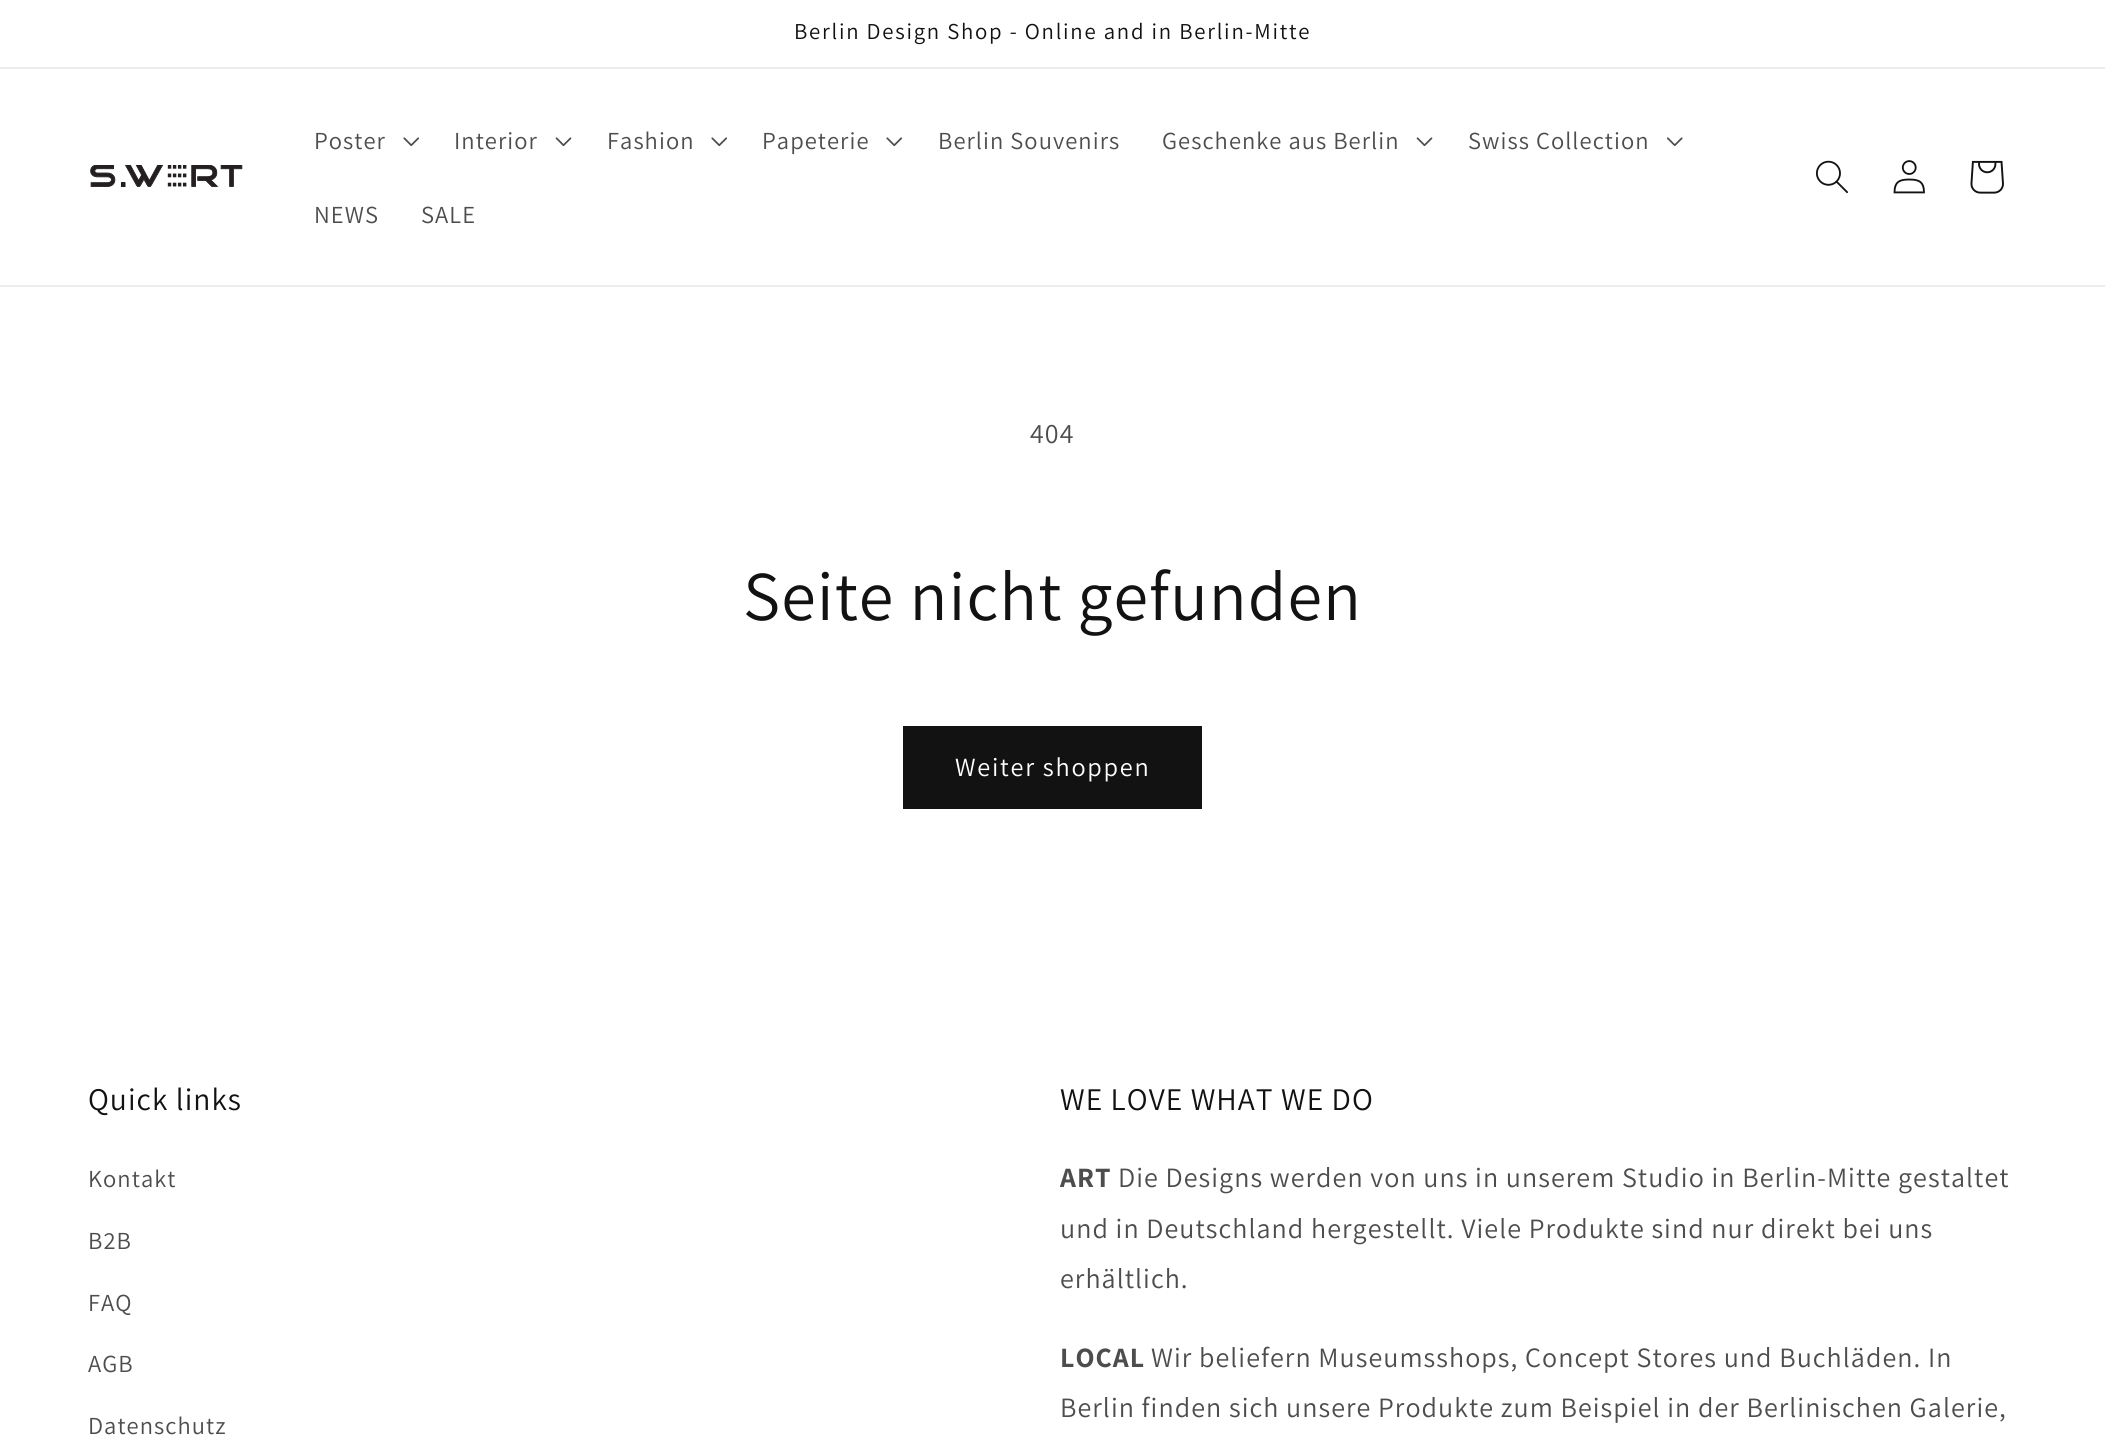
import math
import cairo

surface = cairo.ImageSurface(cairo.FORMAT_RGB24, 2105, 1444)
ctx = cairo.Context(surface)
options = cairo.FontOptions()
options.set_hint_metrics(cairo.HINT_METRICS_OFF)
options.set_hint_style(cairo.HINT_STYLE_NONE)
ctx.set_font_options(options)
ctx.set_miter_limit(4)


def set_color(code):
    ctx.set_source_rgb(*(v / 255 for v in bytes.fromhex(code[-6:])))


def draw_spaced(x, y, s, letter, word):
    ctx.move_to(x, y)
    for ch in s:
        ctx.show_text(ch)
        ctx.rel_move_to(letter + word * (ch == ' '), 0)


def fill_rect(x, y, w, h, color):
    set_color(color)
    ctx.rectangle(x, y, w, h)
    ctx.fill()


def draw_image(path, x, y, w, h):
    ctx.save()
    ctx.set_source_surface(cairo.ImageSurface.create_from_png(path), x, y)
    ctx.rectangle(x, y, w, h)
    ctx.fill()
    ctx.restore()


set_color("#ffffff")
ctx.paint()
fill_rect(0, 67, 2105, 2, "#ececec")
ctx.select_font_face("Assistant")
ctx.set_font_size(22.75)
set_color("#121212")
draw_spaced(794, 39, "Berlin Design Shop - Online and in Berlin-Mitte", 1.75, 0)
fill_rect(0, 285, 2105, 2, "#ececec")
draw_image("assets/img1.png", 90, 165, 153, 22)
ctx.set_font_size(24.5)
set_color("#4d4d4d")
draw_spaced(314, 149, "Poster", 1.05, 0)
draw_image("assets/img2.png", 403, 137, 17, 10)
draw_spaced(454, 149, "Interior", 1.05, 0)
draw_image("assets/img3.png", 555, 137, 17, 10)
draw_spaced(607, 149, "Fashion", 1.05, 0)
draw_image("assets/img2.png", 711, 137, 17, 10)
draw_spaced(762, 149, "Papeterie", 1.05, 0)
draw_image("assets/img2.png", 886, 137, 17, 10)
draw_spaced(938, 149, "Berlin Souvenirs", 1.05, 0)
draw_spaced(1162, 149, "Geschenke aus Berlin", 1.05, 0)
draw_image("assets/img3.png", 1416, 137, 17, 10)
draw_spaced(1468, 149, "Swiss Collection", 1.05, 0)
draw_image("assets/img4.png", 1666, 137, 17, 10)
draw_spaced(314, 223, "NEWS", 1.05, 0)
draw_spaced(421, 223, "SALE", 1.05, 0)
draw_image("assets/img5.png", 1816, 160, 32, 34)
draw_image("assets/img6.png", 1893, 160, 32, 34)
draw_image("assets/img7.png", 1970, 160, 34, 34)
ctx.set_font_size(28)
draw_spaced(1030, 443, "404", 1.05, 0)
ctx.set_font_size(70)
set_color("#121212")
draw_spaced(743, 620, "Seite nicht gefunden", 1.05, 0)
fill_rect(903, 726, 299, 83, "#121212")
ctx.set_font_size(26.25)
set_color("#ffffff")
draw_spaced(955, 776, "Weiter shoppen", 1.75, 0)
ctx.set_font_size(31.5)
set_color("#121212")
draw_spaced(88, 1110, "Quick links", 1.05, 0)
ctx.set_font_size(24.5)
set_color("#4d4d4d")
draw_spaced(88, 1187, "Kontakt", 1.05, 0)
draw_spaced(88, 1249, "B2B", 1.05, 0)
draw_spaced(88, 1311, "FAQ", 1.05, 0)
draw_spaced(88, 1372, "AGB", 1.05, 0)
draw_spaced(88, 1434, "Datenschutz", 1.05, 0)
ctx.set_font_size(31.5)
set_color("#121212")
draw_spaced(1060, 1110, "WE LOVE WHAT WE DO", 1.05, 0)
ctx.select_font_face("Assistant", cairo.FONT_SLANT_NORMAL, cairo.FONT_WEIGHT_BOLD)
ctx.set_font_size(28)
set_color("#4d4d4d")
draw_spaced(1060, 1187, "ART", 1.05, 0)
ctx.select_font_face("Assistant")
draw_spaced(1118, 1187, "Die Designs werden von uns in unserem Studio in Berlin-Mitte gestaltet", 1.05, 0)
draw_spaced(1060, 1238, "und in Deutschland hergestellt. Viele Produkte sind nur direkt bei uns", 1.05, 0)
draw_spaced(1060, 1288, "erhältlich.", 1.05, 0)
ctx.select_font_face("Assistant", cairo.FONT_SLANT_NORMAL, cairo.FONT_WEIGHT_BOLD)
draw_spaced(1060, 1367, "LOCAL", 1.05, 0)
ctx.select_font_face("Assistant")
draw_spaced(1151, 1367, "Wir beliefern Museumsshops, Concept Stores und Buchläden. In", 1.05, 0)
draw_spaced(1060, 1417, "Berlin finden sich unsere Produkte zum Beispiel in der Berlinischen Galerie,", 1.05, 0)
surface.write_to_png("output.png")
